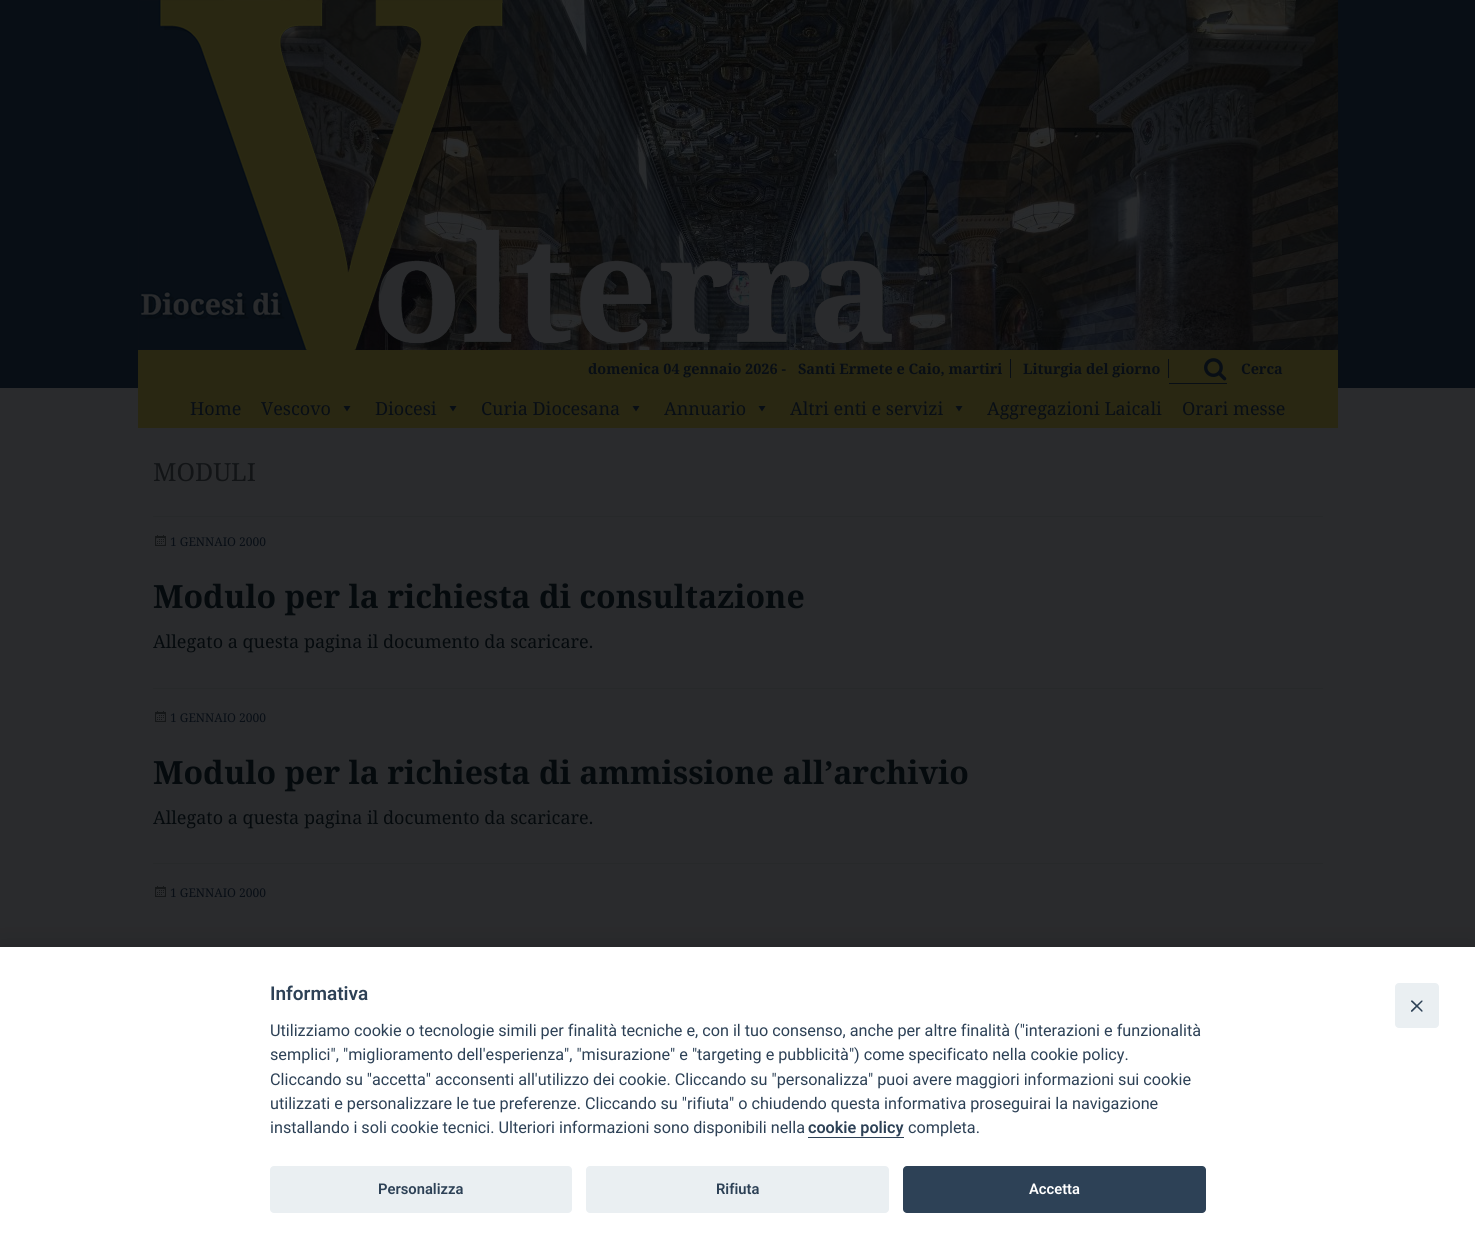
import math
import cairo

surface = cairo.ImageSurface(cairo.FORMAT_RGB24, 1475, 1249)
ctx = cairo.Context(surface)
options = cairo.FontOptions()
options.set_hint_metrics(cairo.HINT_METRICS_OFF)
options.set_hint_style(cairo.HINT_STYLE_NONE)
ctx.set_font_options(options)
ctx.set_miter_limit(4)


def set_color(code):
    ctx.set_source_rgb(*(v / 255 for v in bytes.fromhex(code[-6:])))


def draw_text(x, y, s, family, size, color, bold=False, italic=False):
    ctx.select_font_face(family, cairo.FONT_SLANT_ITALIC if italic else cairo.FONT_SLANT_NORMAL, cairo.FONT_WEIGHT_BOLD if bold else cairo.FONT_WEIGHT_NORMAL)
    ctx.set_font_size(size)
    set_color(color)
    ctx.move_to(x, y)
    ctx.show_text(s)


def fill_rect(x, y, w, h, color):
    set_color(color)
    ctx.rectangle(x, y, w, h)
    ctx.fill()


def rounded_rect(x, y, w, h, r):
    ctx.new_sub_path()
    for i, (u, v) in enumerate([(x + w - r, y + h - r), (x + r, y + h - r), (x + r, y + r), (x + w - r, y + r)]):
        ctx.arc(u, v, r, i * math.pi / 2, (i + 1) * math.pi / 2)
    ctx.close_path()


def draw_shadow(x, y, w, h, r, blur, alpha):
    ctx.push_group_with_content(cairo.CONTENT_ALPHA)
    ctx.set_operator(cairo.OPERATOR_SOURCE)
    for i in range(15, -16, -2):
        e = blur * i / 6
        if min(w, h) + 2 * e > 0:
            ctx.set_source_rgba(0, 0, 0, alpha * math.erfc((i - 1) / 8.5) / 2)
            rounded_rect(x - e, y - e, w + 2 * e, h + 2 * e, max(0, min(r + e + blur * .6, min(w, h) / 2 + e)))
            ctx.fill()
    ctx.mask(ctx.pop_group())


def draw_image(path, x, y, w, h):
    ctx.save()
    ctx.set_source_surface(cairo.ImageSurface.create_from_png(path), x, y)
    ctx.rectangle(x, y, w, h)
    ctx.fill()
    ctx.restore()


set_color("#2a2b2d")
ctx.paint()
fill_rect(0, 0, 1475, 388, "#080e15")
draw_image("assets/img1.png", 138, 0, 1200, 350)
draw_image("assets/img2.png", 138, 0, 757, 350)
fill_rect(138, 350, 1200, 78, "#292712")
draw_text(588, 374, "domenica 04 gennaio 2026 -", "Noto Serif", 14.4, "#080e15", bold=True)
draw_text(798, 374, "Santi Ermete e Caio, martiri", "Noto Serif", 14.4, "#080e15", bold=True)
fill_rect(1010, 359, 1, 19, "#080e15")
draw_text(1023, 374, "Liturgia del giorno", "Noto Serif", 14.4, "#080e15", bold=True)
fill_rect(1168, 359, 1, 19, "#080e15")
draw_image("assets/img3.png", 1204, 358, 23, 23)
fill_rect(1169, 383, 58, 1, "#080e15")
draw_text(1241, 374, "Cerca", "Noto Serif", 14.4, "#080e15", bold=True)
draw_text(190, 415, "Home", "Noto Serif", 18, "#080e15")
draw_text(261, 415, "Vescovo", "Noto Serif", 18, "#080e15")
ctx.new_path()
ctx.move_to(350.5, 406)
ctx.line_to(347, 411.5)
ctx.line_to(343.5, 406)
ctx.close_path()
ctx.fill()
draw_text(375, 415, "Diocesi", "Noto Serif", 18, "#080e15")
ctx.new_path()
ctx.move_to(456.5, 406)
ctx.line_to(453, 411.5)
ctx.line_to(449.5, 406)
ctx.close_path()
ctx.fill()
draw_text(481, 415, "Curia Diocesana", "Noto Serif", 18, "#080e15")
ctx.new_path()
ctx.move_to(639.5, 406)
ctx.line_to(636, 411.5)
ctx.line_to(632.5, 406)
ctx.close_path()
ctx.fill()
draw_text(664, 415, "Annuario", "Noto Serif", 18, "#080e15")
ctx.new_path()
ctx.move_to(765.5, 406)
ctx.line_to(762, 411.5)
ctx.line_to(758.5, 406)
ctx.close_path()
ctx.fill()
draw_text(790, 415, "Altri enti e servizi", "Noto Serif", 18, "#080e15")
ctx.new_path()
ctx.move_to(962.5, 406)
ctx.line_to(959, 411.5)
ctx.line_to(955.5, 406)
ctx.close_path()
ctx.fill()
draw_text(987, 415, "Aggregazioni Laicali", "Noto Serif", 18, "#080e15")
draw_text(1182, 415, "Orari messe", "Noto Serif", 18, "#080e15")
fill_rect(153, 516, 1170, 1, "#27292a")
draw_text(153, 481, "MODULI", "Noto Serif", 25, "#121416")
fill_rect(153, 688, 1170, 1, "#27292a")
draw_image("assets/img4.png", 155, 535, 11, 11)
draw_text(170, 546, "1 GENNAIO 2000", "Noto Serif", 12, "#080e15")
draw_text(153, 608, "Modulo per la richiesta di consultazione", "Noto Serif", 32, "#050a0d", bold=True)
draw_text(153, 648, "Allegato a questa pagina il documento da scaricare.", "Noto Serif", 18, "#050a0d")
fill_rect(153, 863, 1170, 1, "#27292a")
draw_image("assets/img4.png", 155, 711, 11, 11)
draw_text(170, 722, "1 GENNAIO 2000", "Noto Serif", 12, "#080e15")
draw_text(153, 784, "Modulo per la richiesta di ammissione all’archivio", "Noto Serif", 32, "#050a0d", bold=True)
draw_text(153, 824, "Allegato a questa pagina il documento da scaricare.", "Noto Serif", 18, "#050a0d")
draw_image("assets/img4.png", 155, 886, 11, 11)
draw_text(170, 897, "1 GENNAIO 2000", "Noto Serif", 12, "#080e15")
set_color("#020203")
draw_shadow(0, 958, 1475, 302, 0, 17, 0.28)
fill_rect(0, 947, 1475, 302, "#ffffff")
draw_text(270, 1000, "Informativa", "Roboto SemiBold", 19, "#2d4156")
draw_text(270, 1036, "Utilizziamo cookie o tecnologie simili per finalità tecniche e, con il tuo consenso, anche per altre finalità (\"interazioni e funzionalità", "Roboto", 16.2, "#2d4156")
draw_text(270, 1060, "semplici\", \"miglioramento dell'esperienza\", \"misurazione\" e \"targeting e pubblicità\") come specificato nella cookie policy.", "Roboto", 16.2, "#2d4156")
draw_text(270, 1085, "Cliccando su \"accetta\" acconsenti all'utilizzo dei cookie. Cliccando su \"personalizza\" puoi avere maggiori informazioni sui cookie", "Roboto", 16.2, "#2d4156")
draw_text(270, 1109, "utilizzati e personalizzare le tue preferenze. Cliccando su \"rifiuta\" o chiudendo questa informativa proseguirai la navigazione", "Roboto", 16.2, "#2d4156")
draw_text(270, 1133, "installando i soli cookie tecnici. Ulteriori informazioni sono disponibili nella", "Roboto", 16.2, "#2d4156")
draw_text(808, 1133, "cookie policy", "Roboto SemiBold", 16.2, "#2d4156")
fill_rect(808, 1137, 96, 1, "#2d4156")
draw_text(908, 1133, "completa.", "Roboto", 16.2, "#2d4156")
set_color("#eaeff2")
rounded_rect(270, 1166, 302, 47, 4)
ctx.fill()
draw_text(378, 1194, "Personalizza", "Roboto SemiBold", 14.75, "#2d4156")
set_color("#eaeff2")
rounded_rect(586, 1166, 303, 47, 4)
ctx.fill()
draw_text(716, 1194, "Rifiuta", "Roboto SemiBold", 14.75, "#2d4156")
rounded_rect(903, 1166, 303, 47, 4)
ctx.fill()
draw_text(1029, 1194, "Accetta", "Roboto SemiBold", 14.75, "#ffffff")
set_color("#eaeff2")
rounded_rect(1395, 983, 44, 45, 4)
ctx.fill()
set_color("#2d4156")
ctx.new_path()
ctx.move_to(1422.5, 1000.5)
ctx.curve_to(1422.5, 1001, 1422.5, 1001.5, 1422.5, 1001.5)
ctx.line_to(1412.5, 1011.5)
ctx.curve_to(1412, 1012, 1411.5, 1012, 1411, 1011.5)
ctx.curve_to(1411, 1011.5, 1411, 1011, 1411, 1010.5)
ctx.line_to(1421.5, 1000.5)
ctx.curve_to(1421.5, 1000.5, 1422, 1000.5, 1422.5, 1000.5)
ctx.close_path()
ctx.fill()
ctx.new_path()
ctx.move_to(1411, 1000.5)
ctx.curve_to(1411.5, 1000.5, 1412, 1000.5, 1412.5, 1000.5)
ctx.line_to(1422.5, 1010.5)
ctx.curve_to(1422.5, 1011, 1422.5, 1011.5, 1422.5, 1011.5)
ctx.curve_to(1422, 1012, 1421.5, 1012, 1421.5, 1011.5)
ctx.line_to(1411, 1001.5)
ctx.curve_to(1411, 1001.5, 1411, 1001, 1411, 1000.5)
ctx.close_path()
ctx.fill()
surface.write_to_png("output.png")
